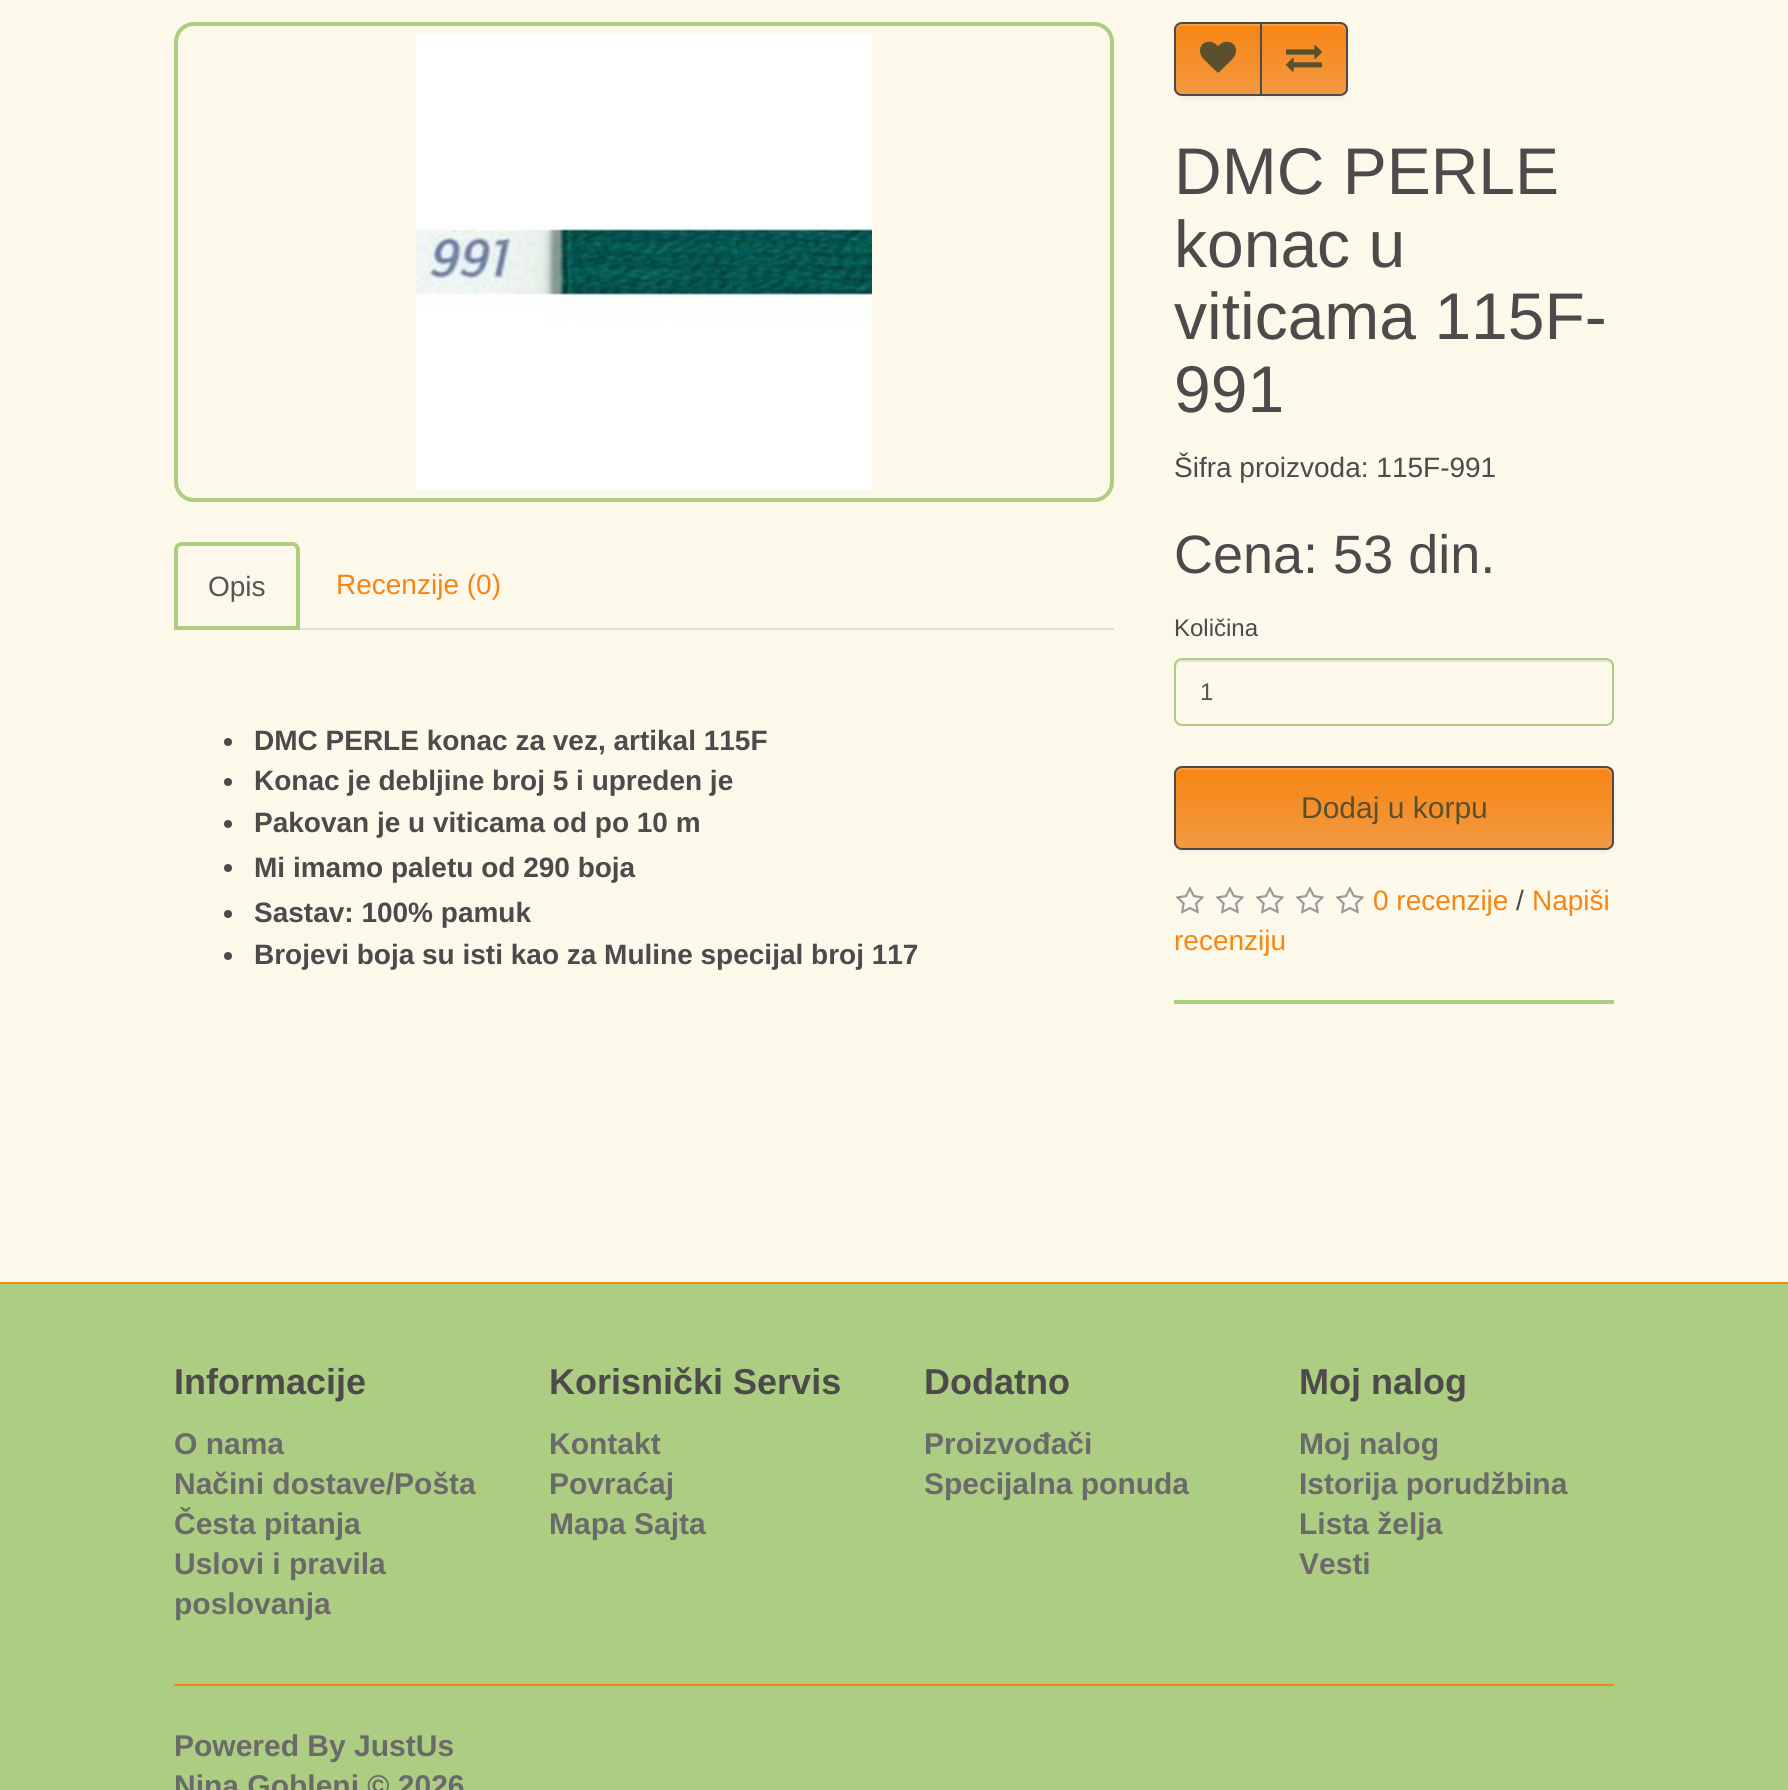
import math
import cairo

surface = cairo.ImageSurface(cairo.FORMAT_RGB24, 1788, 1790)
ctx = cairo.Context(surface)
options = cairo.FontOptions()
options.set_hint_metrics(cairo.HINT_METRICS_OFF)
options.set_hint_style(cairo.HINT_STYLE_NONE)
ctx.set_font_options(options)
ctx.set_miter_limit(4)


def set_color(code):
    ctx.set_source_rgb(*(v / 255 for v in bytes.fromhex(code[-6:])))


def draw_text(x, y, s, family, size, color, bold=False, italic=False):
    ctx.select_font_face(family, cairo.FONT_SLANT_ITALIC if italic else cairo.FONT_SLANT_NORMAL, cairo.FONT_WEIGHT_BOLD if bold else cairo.FONT_WEIGHT_NORMAL)
    ctx.set_font_size(size)
    set_color(color)
    ctx.move_to(x, y)
    ctx.show_text(s)


def fill_rect(x, y, w, h, color):
    set_color(color)
    ctx.rectangle(x, y, w, h)
    ctx.fill()


def rounded_rect(x, y, w, h, r):
    ctx.new_sub_path()
    for i, (u, v) in enumerate([(x + w - r, y + h - r), (x + r, y + h - r), (x + r, y + r), (x + w - r, y + r)]):
        ctx.arc(u, v, r, i * math.pi / 2, (i + 1) * math.pi / 2)
    ctx.close_path()


def draw_shadow(x, y, w, h, r, blur, alpha):
    ctx.push_group_with_content(cairo.CONTENT_ALPHA)
    ctx.set_operator(cairo.OPERATOR_SOURCE)
    for i in range(15, -16, -2):
        e = blur * i / 6
        if min(w, h) + 2 * e > 0:
            ctx.set_source_rgba(0, 0, 0, alpha * math.erfc((i - 1) / 8.5) / 2)
            rounded_rect(x - e, y - e, w + 2 * e, h + 2 * e, max(0, min(r + e + blur * .6, min(w, h) / 2 + e)))
            ctx.fill()
    ctx.mask(ctx.pop_group())


def draw_image(path, x, y, w, h):
    ctx.save()
    ctx.set_source_surface(cairo.ImageSurface.create_from_png(path), x, y)
    ctx.rectangle(x, y, w, h)
    ctx.fill()
    ctx.restore()


set_color("#fcf8ea")
ctx.paint()
rounded_rect(176, 24, 936, 476, 18)
set_color("#adce82")
ctx.set_line_width(4)
ctx.stroke()
draw_image("assets/img1.png", 416, 34, 456, 456)
fill_rect(300, 628, 814, 2, "#dddddd")
ctx.new_path()
ctx.move_to(182, 544)
ctx.line_to(292, 544)
ctx.curve_to(295.5, 544, 298, 546.5, 298, 550)
ctx.line_to(298, 628)
ctx.line_to(176, 628)
ctx.line_to(176, 550)
ctx.curve_to(176, 546.5, 178.5, 544, 182, 544)
ctx.close_path()
set_color("#adce82")
ctx.stroke()
draw_text(208, 596, "Opis", "Liberation Sans", 28, "#555555")
draw_text(336, 594, "Recenzije (0)", "Liberation Sans", 28, "#f78513")
set_color("#4c4a4a")
ctx.new_path()
ctx.arc(228, 742, 4, 0, 2 * math.pi)
ctx.fill()
draw_text(254, 750, "DMC PERLE konac za vez, artikal 115F", "Liberation Sans", 28, "#4c4a4a", bold=True)
ctx.new_path()
ctx.arc(228, 782, 4, 0, 2 * math.pi)
ctx.fill()
draw_text(254, 790, "Konac je debljine broj 5 i upreden je", "Liberation Sans", 28, "#4c4a4a", bold=True)
ctx.new_path()
ctx.arc(228, 824, 4, 0, 2 * math.pi)
ctx.fill()
draw_text(254, 832, "Pakovan je u viticama od po 10 m", "Liberation Sans", 28, "#4c4a4a", bold=True)
ctx.new_path()
ctx.arc(228, 868, 4, 0, 2 * math.pi)
ctx.fill()
draw_text(254, 877, "Mi imamo paletu od 290 boja", "Liberation Sans", 28, "#4c4a4a", bold=True)
ctx.new_path()
ctx.arc(228, 914, 4, 0, 2 * math.pi)
ctx.fill()
draw_text(254, 922, "Sastav: 100% pamuk", "Liberation Sans", 28, "#4c4a4a", bold=True)
ctx.new_path()
ctx.arc(228, 956, 4, 0, 2 * math.pi)
ctx.fill()
draw_text(254, 964, "Brojevi boja su isti kao za Muline specijal broj 117", "Liberation Sans", 28, "#4c4a4a", bold=True)
set_color("#000000")
draw_shadow(1174, 24, 88, 74, 8, 2, 0.05)
ctx.save()
ctx.new_path()
ctx.move_to(1182, 22)
ctx.line_to(1262, 22)
ctx.line_to(1262, 96)
ctx.line_to(1182, 96)
ctx.curve_to(1177.5, 96, 1174, 92.5, 1174, 88)
ctx.line_to(1174, 30)
ctx.curve_to(1174, 25.5, 1177.5, 22, 1182, 22)
ctx.close_path()
ctx.clip()
gradient = cairo.LinearGradient(1218, 24, 1218, 94)
gradient.add_color_stop_rgba(0, 0.969, 0.522, 0.075, 1)
gradient.add_color_stop_rgba(1, 0.949, 0.6, 0.255, 1)
ctx.set_source(gradient)
ctx.rectangle(1174, 24, 86, 70)
ctx.fill()
ctx.restore()
ctx.set_source_rgba(1, 1, 1, 0.2)
ctx.new_path()
ctx.move_to(1182, 26)
ctx.line_to(1260, 26)
ctx.line_to(1260, 24)
ctx.line_to(1182, 24)
ctx.curve_to(1179, 24, 1176, 27, 1176, 30)
ctx.line_to(1176, 32)
ctx.curve_to(1176, 29, 1179, 26, 1182, 26)
ctx.close_path()
ctx.fill()
ctx.new_path()
ctx.move_to(1182, 23)
ctx.line_to(1261, 23)
ctx.line_to(1261, 95)
ctx.line_to(1182, 95)
ctx.curve_to(1178, 95, 1175, 92, 1175, 88)
ctx.line_to(1175, 30)
ctx.curve_to(1175, 26, 1178, 23, 1182, 23)
ctx.close_path()
set_color("#4c4a4a")
ctx.set_line_width(2)
ctx.stroke()
draw_image("assets/img2.png", 1200, 41, 36, 32)
set_color("#000000")
draw_shadow(1260, 24, 88, 74, 8, 2, 0.05)
ctx.save()
ctx.new_path()
ctx.move_to(1260, 22)
ctx.line_to(1340, 22)
ctx.curve_to(1344.5, 22, 1348, 25.5, 1348, 30)
ctx.line_to(1348, 88)
ctx.curve_to(1348, 92.5, 1344.5, 96, 1340, 96)
ctx.line_to(1260, 96)
ctx.close_path()
ctx.clip()
gradient = cairo.LinearGradient(1304, 24, 1304, 94)
gradient.add_color_stop_rgba(0, 0.969, 0.522, 0.075, 1)
gradient.add_color_stop_rgba(1, 0.949, 0.6, 0.255, 1)
ctx.set_source(gradient)
ctx.rectangle(1262, 24, 86, 70)
ctx.fill()
ctx.restore()
ctx.set_source_rgba(1, 1, 1, 0.2)
ctx.new_path()
ctx.move_to(1262, 26)
ctx.line_to(1340, 26)
ctx.curve_to(1343, 26, 1346, 29, 1346, 32)
ctx.line_to(1346, 30)
ctx.curve_to(1346, 27, 1343, 24, 1340, 24)
ctx.line_to(1262, 24)
ctx.close_path()
ctx.fill()
ctx.new_path()
ctx.move_to(1261, 23)
ctx.line_to(1340, 23)
ctx.curve_to(1344, 23, 1347, 26, 1347, 30)
ctx.line_to(1347, 88)
ctx.curve_to(1347, 92, 1344, 95, 1340, 95)
ctx.line_to(1261, 95)
ctx.close_path()
set_color("#4c4a4a")
ctx.stroke()
draw_image("assets/img3.png", 1286, 45, 36, 27)
draw_text(1174, 194, "DMC PERLE", "Liberation Sans", 66, "#4c4a4a")
draw_text(1174, 267, "konac u", "Liberation Sans", 66, "#4c4a4a")
draw_text(1174, 339, "viticama 115F-", "Liberation Sans", 66, "#4c4a4a")
draw_text(1174, 412, "991", "Liberation Sans", 66, "#4c4a4a")
draw_text(1174, 477, "Šifra proizvoda: 115F-991", "Liberation Sans", 28, "#4c4a4a")
draw_text(1174, 573, "Cena: 53 din.", "Liberation Sans", 54, "#4c4a4a")
draw_text(1174, 636, "Količina", "Liberation Sans", 24, "#4c4a4a")
set_color("#e9e5d8")
ctx.new_path()
ctx.move_to(1182, 662)
ctx.line_to(1606, 662)
ctx.curve_to(1609, 662, 1612, 665, 1612, 668)
ctx.line_to(1612, 666)
ctx.curve_to(1612, 663, 1609, 660, 1606, 660)
ctx.line_to(1182, 660)
ctx.curve_to(1179, 660, 1176, 663, 1176, 666)
ctx.line_to(1176, 668)
ctx.curve_to(1176, 665, 1179, 662, 1182, 662)
ctx.close_path()
ctx.fill()
rounded_rect(1175, 659, 438, 66, 7)
set_color("#adce82")
ctx.stroke()
draw_text(1200, 700, "1", "Liberation Sans", 24, "#555555")
set_color("#000000")
draw_shadow(1174, 768, 440, 84, 8, 2, 0.05)
ctx.save()
rounded_rect(1174, 766, 440, 84, 8)
ctx.clip()
gradient = cairo.LinearGradient(1394, 768, 1394, 848)
gradient.add_color_stop_rgba(0, 0.969, 0.522, 0.075, 1)
gradient.add_color_stop_rgba(1, 0.949, 0.6, 0.255, 1)
ctx.set_source(gradient)
ctx.rectangle(1174, 768, 440, 80)
ctx.fill()
ctx.restore()
ctx.set_source_rgba(1, 1, 1, 0.2)
ctx.new_path()
ctx.move_to(1182, 770)
ctx.line_to(1606, 770)
ctx.curve_to(1609, 770, 1612, 773, 1612, 776)
ctx.line_to(1612, 774)
ctx.curve_to(1612, 771, 1609, 768, 1606, 768)
ctx.line_to(1182, 768)
ctx.curve_to(1179, 768, 1176, 771, 1176, 774)
ctx.line_to(1176, 776)
ctx.curve_to(1176, 773, 1179, 770, 1182, 770)
ctx.close_path()
ctx.fill()
rounded_rect(1175, 767, 438, 82, 7)
set_color("#4c4a4a")
ctx.stroke()
draw_text(1301, 818, "Dodaj u korpu", "Liberation Sans", 30, "#5b502e")
draw_image("assets/img4.png", 1176, 886, 28, 28)
draw_image("assets/img4.png", 1216, 886, 28, 28)
draw_image("assets/img4.png", 1256, 886, 28, 28)
draw_image("assets/img4.png", 1296, 886, 28, 28)
draw_image("assets/img4.png", 1336, 886, 28, 28)
draw_text(1373, 910, "0 recenzije", "Liberation Sans", 28, "#f78513")
draw_text(1516, 910, "/", "Liberation Sans", 28, "#4c4a4a")
draw_text(1532, 910, "Napiši", "Liberation Sans", 28, "#f78513")
draw_text(1174, 950, "recenziju", "Liberation Sans", 28, "#f78513")
fill_rect(1174, 1000, 440, 4, "#adce82")
fill_rect(0, 1284, 1788, 506, "#adce82")
fill_rect(0, 1282, 1788, 2, "#f78513")
draw_text(174, 1394, "Informacije", "Liberation Sans", 36, "#4c4a4a", bold=True)
draw_text(174, 1454, "O nama", "Liberation Sans", 30, "#6b6a6a", bold=True)
draw_text(174, 1494, "Načini dostave/Pošta", "Liberation Sans", 30, "#6b6a6a", bold=True)
draw_text(174, 1534, "Česta pitanja", "Liberation Sans", 30, "#6b6a6a", bold=True)
draw_text(174, 1574, "Uslovi i pravila", "Liberation Sans", 30, "#6b6a6a", bold=True)
draw_text(174, 1614, "poslovanja", "Liberation Sans", 30, "#6b6a6a", bold=True)
draw_text(549, 1394, "Korisnički Servis", "Liberation Sans", 36, "#4c4a4a", bold=True)
draw_text(549, 1454, "Kontakt", "Liberation Sans", 30, "#6b6a6a", bold=True)
draw_text(549, 1494, "Povraćaj", "Liberation Sans", 30, "#6b6a6a", bold=True)
draw_text(549, 1534, "Mapa Sajta", "Liberation Sans", 30, "#6b6a6a", bold=True)
draw_text(924, 1394, "Dodatno", "Liberation Sans", 36, "#4c4a4a", bold=True)
draw_text(924, 1454, "Proizvođači", "Liberation Sans", 30, "#6b6a6a", bold=True)
draw_text(924, 1494, "Specijalna ponuda", "Liberation Sans", 30, "#6b6a6a", bold=True)
draw_text(1299, 1394, "Moj nalog", "Liberation Sans", 36, "#4c4a4a", bold=True)
draw_text(1299, 1454, "Moj nalog", "Liberation Sans", 30, "#6b6a6a", bold=True)
draw_text(1299, 1494, "Istorija porudžbina", "Liberation Sans", 30, "#6b6a6a", bold=True)
draw_text(1299, 1534, "Lista želja", "Liberation Sans", 30, "#6b6a6a", bold=True)
draw_text(1299, 1574, "Vesti", "Liberation Sans", 30, "#6b6a6a", bold=True)
fill_rect(174, 1684, 1440, 2, "#f78513")
draw_text(174, 1756, "Powered By JustUs", "Liberation Sans", 30, "#6b6a6a", bold=True)
draw_text(174, 1796, "Nina Gobleni © 2026", "Liberation Sans", 30, "#6b6a6a", bold=True)
surface.write_to_png("output.png")
